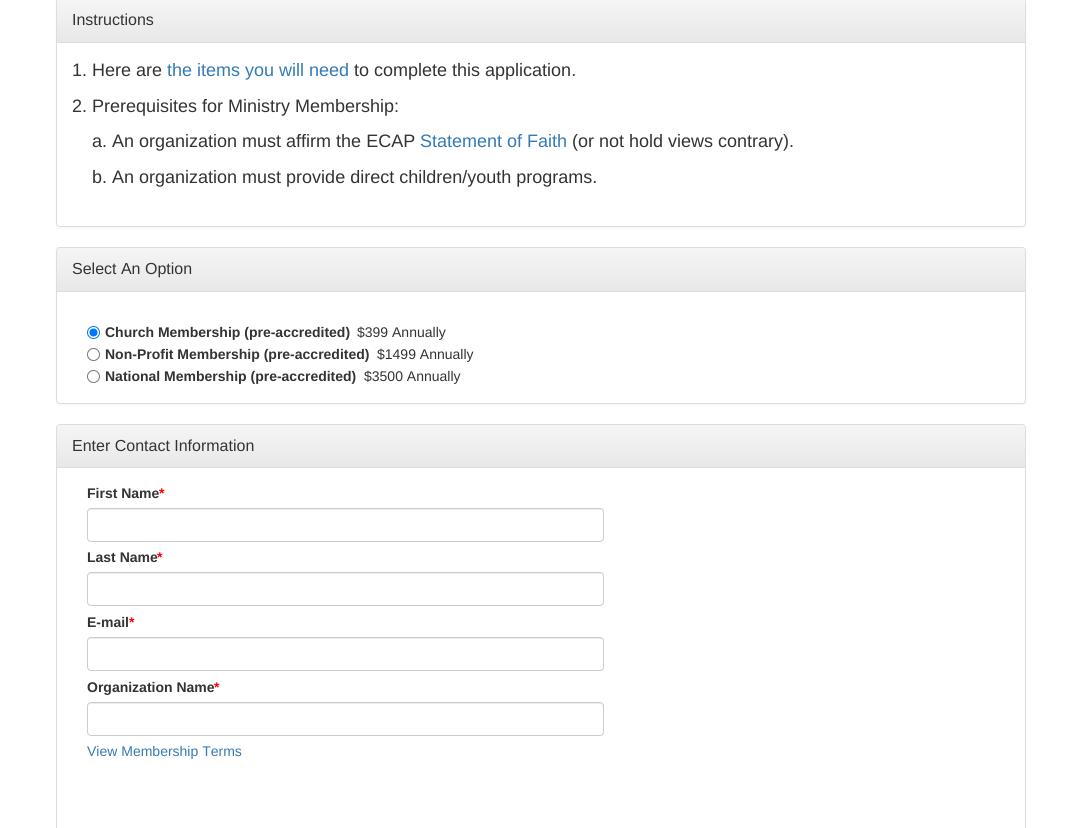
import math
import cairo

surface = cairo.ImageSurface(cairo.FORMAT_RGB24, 1081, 828)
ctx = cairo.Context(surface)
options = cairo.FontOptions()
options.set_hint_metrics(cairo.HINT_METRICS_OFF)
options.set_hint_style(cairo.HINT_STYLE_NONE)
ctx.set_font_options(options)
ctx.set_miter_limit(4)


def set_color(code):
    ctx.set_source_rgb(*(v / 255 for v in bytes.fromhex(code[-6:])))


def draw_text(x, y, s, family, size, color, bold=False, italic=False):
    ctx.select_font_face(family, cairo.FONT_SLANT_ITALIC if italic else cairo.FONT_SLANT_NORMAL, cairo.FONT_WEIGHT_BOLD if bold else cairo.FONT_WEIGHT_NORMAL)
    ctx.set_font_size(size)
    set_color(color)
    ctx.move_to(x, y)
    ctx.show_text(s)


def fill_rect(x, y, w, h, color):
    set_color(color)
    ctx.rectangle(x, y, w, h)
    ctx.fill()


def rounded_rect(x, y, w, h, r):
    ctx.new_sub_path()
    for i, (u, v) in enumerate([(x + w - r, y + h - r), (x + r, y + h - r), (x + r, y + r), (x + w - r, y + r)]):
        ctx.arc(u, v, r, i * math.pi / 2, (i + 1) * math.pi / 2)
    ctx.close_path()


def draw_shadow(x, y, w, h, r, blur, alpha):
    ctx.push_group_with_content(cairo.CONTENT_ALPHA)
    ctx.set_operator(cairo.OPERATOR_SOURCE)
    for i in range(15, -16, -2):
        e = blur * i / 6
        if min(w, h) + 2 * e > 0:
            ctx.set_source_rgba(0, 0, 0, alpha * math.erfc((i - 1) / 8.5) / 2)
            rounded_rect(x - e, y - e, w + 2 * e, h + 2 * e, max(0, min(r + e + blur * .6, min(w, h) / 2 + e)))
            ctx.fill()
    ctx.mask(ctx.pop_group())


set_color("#ffffff")
ctx.paint()
set_color("#000000")
draw_shadow(56, -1, 970, 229, 4, 1, 0.05)
set_color("#ffffff")
rounded_rect(56.5, -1.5, 969, 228, 3.5)
ctx.fill_preserve()
set_color("#dddddd")
ctx.set_line_width(1)
ctx.stroke()
gradient = cairo.LinearGradient(541, -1, 541, 42)
gradient.add_color_stop_rgba(0, 0.961, 0.961, 0.961, 1)
gradient.add_color_stop_rgba(1, 0.91, 0.91, 0.91, 1)
ctx.set_source(gradient)
ctx.new_path()
ctx.move_to(60, -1)
ctx.line_to(1022, -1)
ctx.curve_to(1023.5, -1, 1025, 0.5, 1025, 2)
ctx.line_to(1025, 42)
ctx.line_to(57, 42)
ctx.line_to(57, 2)
ctx.curve_to(57, 0.5, 58.5, -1, 60, -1)
ctx.close_path()
ctx.fill()
fill_rect(57, 42, 968, 1, "#dddddd")
draw_text(72, 25, "Instructions", "Liberation Sans", 16, "#333333")
draw_text(72, 76, "1. Here are", "Liberation Sans", 18, "#333333")
draw_text(167, 76, "the items you will need", "Liberation Sans", 18, "#337ab7")
draw_text(354, 76, "to complete this application.", "Liberation Sans", 18, "#333333")
draw_text(72, 112, "2. Prerequisites for Ministry Membership:", "Liberation Sans", 18, "#333333")
draw_text(92, 147, "a. An organization must affirm the ECAP", "Liberation Sans", 18, "#333333")
draw_text(420, 147, "Statement of Faith", "Liberation Sans", 18, "#337ab7")
draw_text(572, 147, "(or not hold views contrary).", "Liberation Sans", 18, "#333333")
draw_text(92, 183, "b. An organization must provide direct children/youth programs.", "Liberation Sans", 18, "#333333")
set_color("#000000")
draw_shadow(56, 248, 970, 157, 4, 1, 0.05)
set_color("#ffffff")
rounded_rect(56.5, 247.5, 969, 156, 3.5)
ctx.fill_preserve()
set_color("#dddddd")
ctx.stroke()
gradient = cairo.LinearGradient(541, 248, 541, 291)
gradient.add_color_stop_rgba(0, 0.961, 0.961, 0.961, 1)
gradient.add_color_stop_rgba(1, 0.91, 0.91, 0.91, 1)
ctx.set_source(gradient)
ctx.new_path()
ctx.move_to(60, 248)
ctx.line_to(1022, 248)
ctx.curve_to(1023.5, 248, 1025, 249.5, 1025, 251)
ctx.line_to(1025, 291)
ctx.line_to(57, 291)
ctx.line_to(57, 251)
ctx.curve_to(57, 249.5, 58.5, 248, 60, 248)
ctx.close_path()
ctx.fill()
fill_rect(57, 291, 968, 1, "#dddddd")
draw_text(72, 274, "Select An Option", "Liberation Sans", 16, "#333333")
ctx.new_path()
ctx.arc(93.5, 332.5, 6, 0, 2 * math.pi)
set_color("#0075ff")
ctx.stroke()
ctx.arc(93.5, 332.5, 4, 0, 2 * math.pi)
ctx.fill()
draw_text(105, 337, "Church Membership (pre-accredited)", "Liberation Sans", 14, "#333333", bold=True)
draw_text(357, 337, "$399 Annually", "Liberation Sans", 14, "#333333")
ctx.new_path()
ctx.arc(93.5, 354.5, 6, 0, 2 * math.pi)
set_color("#767676")
ctx.stroke()
draw_text(105, 359, "Non-Profit Membership (pre-accredited)", "Liberation Sans", 14, "#333333", bold=True)
draw_text(377, 359, "$1499 Annually", "Liberation Sans", 14, "#333333")
ctx.new_path()
ctx.arc(93.5, 376.5, 6, 0, 2 * math.pi)
set_color("#767676")
ctx.stroke()
draw_text(105, 381, "National Membership (pre-accredited)", "Liberation Sans", 14, "#333333", bold=True)
draw_text(364, 381, "$3500 Annually", "Liberation Sans", 14, "#333333")
rounded_rect(56.5, 424.5, 969, 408, 3.5)
set_color("#dddddd")
ctx.stroke()
gradient = cairo.LinearGradient(541, 425, 541, 467)
gradient.add_color_stop_rgba(0, 0.961, 0.961, 0.961, 1)
gradient.add_color_stop_rgba(1, 0.91, 0.91, 0.91, 1)
ctx.set_source(gradient)
ctx.new_path()
ctx.move_to(60, 425)
ctx.line_to(1022, 425)
ctx.curve_to(1023.5, 425, 1025, 426.5, 1025, 428)
ctx.line_to(1025, 467)
ctx.line_to(57, 467)
ctx.line_to(57, 428)
ctx.curve_to(57, 426.5, 58.5, 425, 60, 425)
ctx.close_path()
ctx.fill()
fill_rect(57, 467, 968, 1, "#dddddd")
draw_text(72, 451, "Enter Contact Information", "Liberation Sans", 16, "#333333")
draw_text(87, 498, "First Name", "Liberation Sans", 14, "#333333", bold=True)
draw_text(159, 498, "*", "Liberation Sans", 14, "#ff0000", bold=True)
set_color("#ececec")
ctx.new_path()
ctx.move_to(91, 510)
ctx.line_to(600, 510)
ctx.curve_to(602, 510, 603, 511, 603, 513)
ctx.line_to(603, 511)
ctx.line_to(601, 509)
ctx.line_to(91, 509)
ctx.curve_to(89, 509, 88, 511, 88, 513)
ctx.curve_to(88, 511, 89, 510, 91, 510)
ctx.close_path()
ctx.fill()
rounded_rect(87.5, 508.5, 516, 33, 3.5)
set_color("#cccccc")
ctx.stroke()
draw_text(87, 562, "Last Name", "Liberation Sans", 14, "#333333", bold=True)
draw_text(157, 562, "*", "Liberation Sans", 14, "#ff0000", bold=True)
set_color("#ececec")
ctx.new_path()
ctx.move_to(91, 574)
ctx.line_to(600, 574)
ctx.curve_to(602, 574, 603, 575, 603, 577)
ctx.line_to(603, 575)
ctx.line_to(601, 573)
ctx.line_to(91, 573)
ctx.curve_to(89, 573, 88, 575, 88, 577)
ctx.curve_to(88, 575, 89, 574, 91, 574)
ctx.close_path()
ctx.fill()
rounded_rect(87.5, 572.5, 516, 33, 3.5)
set_color("#cccccc")
ctx.stroke()
draw_text(87, 627, "E-mail", "Liberation Sans", 14, "#333333", bold=True)
draw_text(129, 627, "*", "Liberation Sans", 14, "#ff0000", bold=True)
set_color("#ececec")
ctx.new_path()
ctx.move_to(91, 639)
ctx.line_to(600, 639)
ctx.curve_to(602, 639, 603, 640, 603, 642)
ctx.line_to(603, 640)
ctx.line_to(601, 638)
ctx.line_to(91, 638)
ctx.curve_to(89, 638, 88, 640, 88, 642)
ctx.curve_to(88, 640, 89, 639, 91, 639)
ctx.close_path()
ctx.fill()
rounded_rect(87.5, 637.5, 516, 33, 3.5)
set_color("#cccccc")
ctx.stroke()
draw_text(87, 692, "Organization Name", "Liberation Sans", 14, "#333333", bold=True)
draw_text(214, 692, "*", "Liberation Sans", 14, "#ff0000", bold=True)
set_color("#ececec")
ctx.new_path()
ctx.move_to(91, 704)
ctx.line_to(600, 704)
ctx.curve_to(602, 704, 603, 705, 603, 707)
ctx.line_to(603, 705)
ctx.line_to(601, 703)
ctx.line_to(91, 703)
ctx.curve_to(89, 703, 88, 705, 88, 707)
ctx.curve_to(88, 705, 89, 704, 91, 704)
ctx.close_path()
ctx.fill()
rounded_rect(87.5, 702.5, 516, 33, 3.5)
set_color("#cccccc")
ctx.stroke()
draw_text(87, 756, "View Membership Terms", "Liberation Sans", 14, "#337ab7")
surface.write_to_png("output.png")
